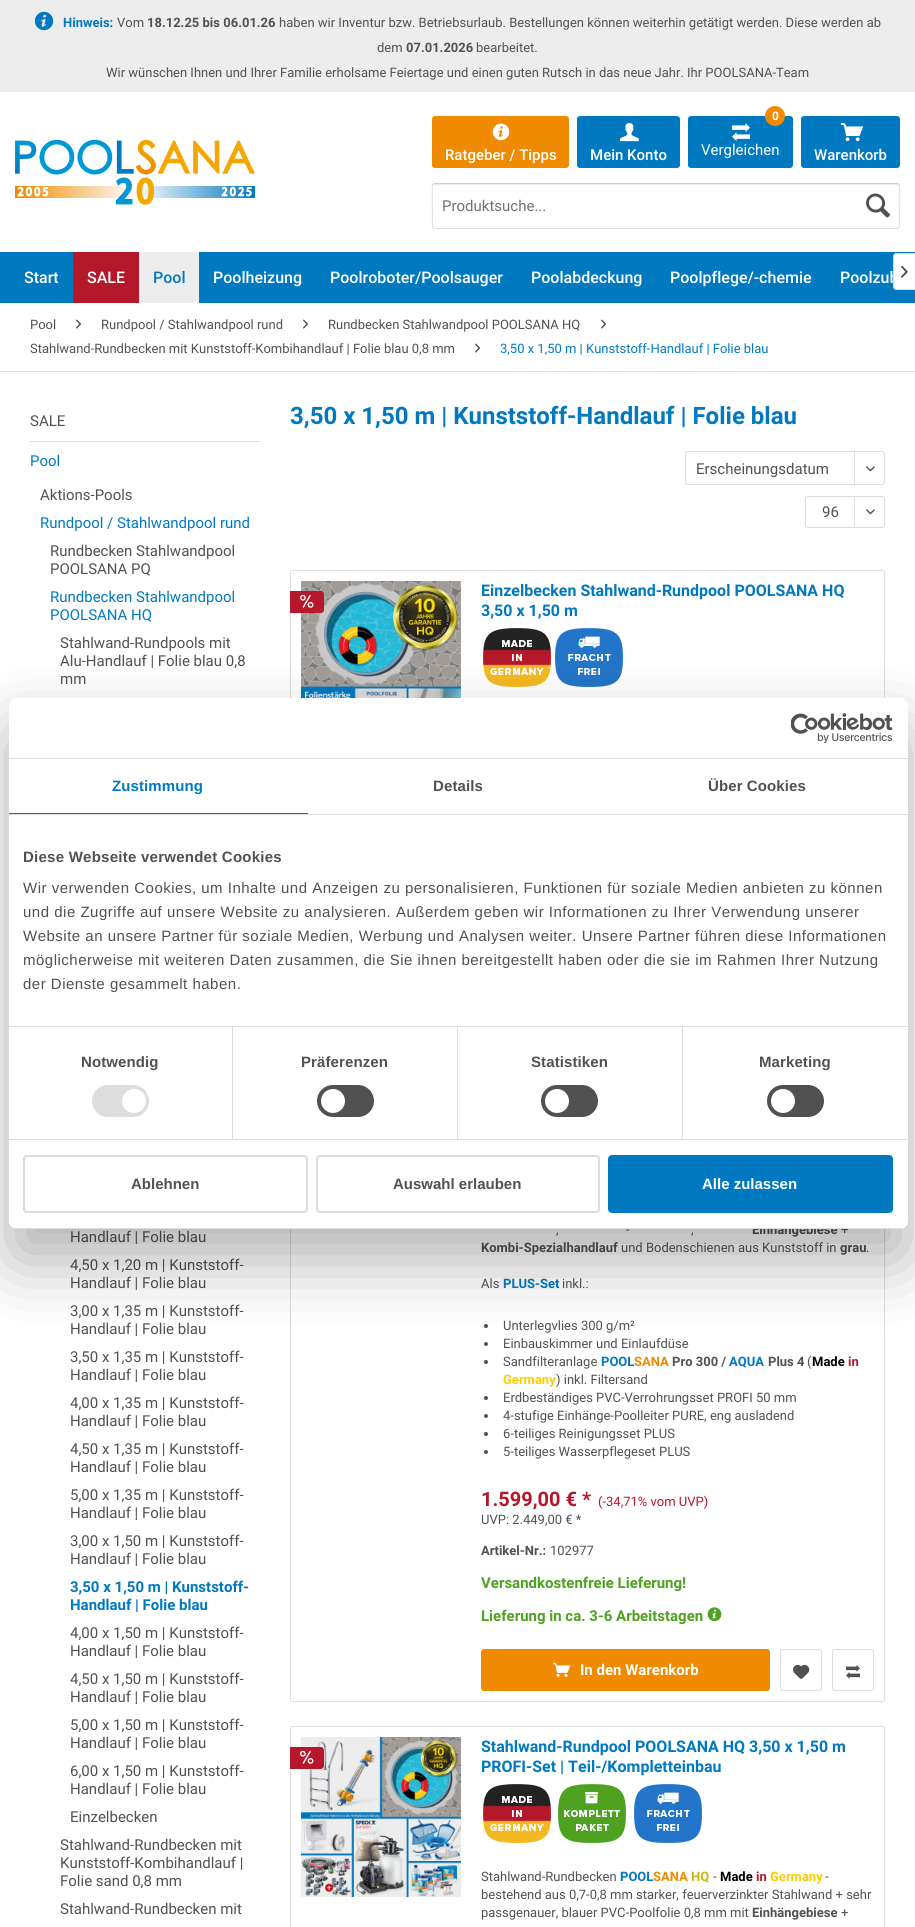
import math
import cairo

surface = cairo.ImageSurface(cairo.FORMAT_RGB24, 915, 1927)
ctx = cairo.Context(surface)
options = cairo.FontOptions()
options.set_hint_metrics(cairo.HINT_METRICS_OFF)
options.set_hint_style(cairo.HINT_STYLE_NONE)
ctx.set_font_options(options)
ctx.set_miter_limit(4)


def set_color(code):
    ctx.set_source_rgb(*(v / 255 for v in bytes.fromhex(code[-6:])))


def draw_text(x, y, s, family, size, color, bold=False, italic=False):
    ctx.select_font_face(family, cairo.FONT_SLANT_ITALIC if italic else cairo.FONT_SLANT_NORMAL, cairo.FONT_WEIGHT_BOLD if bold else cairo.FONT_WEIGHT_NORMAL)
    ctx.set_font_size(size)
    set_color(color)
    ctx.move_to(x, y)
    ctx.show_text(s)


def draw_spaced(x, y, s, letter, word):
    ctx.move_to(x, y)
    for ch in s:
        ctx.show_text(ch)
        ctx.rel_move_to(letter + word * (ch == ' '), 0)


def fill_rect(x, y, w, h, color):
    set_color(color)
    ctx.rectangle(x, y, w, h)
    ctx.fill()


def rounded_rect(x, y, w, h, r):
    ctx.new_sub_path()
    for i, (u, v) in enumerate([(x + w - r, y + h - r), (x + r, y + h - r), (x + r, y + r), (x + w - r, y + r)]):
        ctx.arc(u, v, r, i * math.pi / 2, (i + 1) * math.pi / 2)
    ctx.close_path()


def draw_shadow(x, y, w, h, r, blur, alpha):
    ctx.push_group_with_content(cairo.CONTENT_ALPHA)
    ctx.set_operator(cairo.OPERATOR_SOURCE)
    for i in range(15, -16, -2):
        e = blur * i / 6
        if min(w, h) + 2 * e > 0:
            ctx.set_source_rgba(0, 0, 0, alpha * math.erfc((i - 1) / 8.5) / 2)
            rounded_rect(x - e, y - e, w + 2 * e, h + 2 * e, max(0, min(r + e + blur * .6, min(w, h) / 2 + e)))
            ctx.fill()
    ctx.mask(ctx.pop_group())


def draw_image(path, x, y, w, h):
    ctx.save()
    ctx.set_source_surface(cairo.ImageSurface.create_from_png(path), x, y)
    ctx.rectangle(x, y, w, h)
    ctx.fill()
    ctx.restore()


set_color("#ededed")
ctx.paint()
draw_image("assets/img1.png", 34, 11, 20, 20)
draw_text(63, 27, "Hinweis:", "Roboto", 13, "#0079c1", bold=True)
draw_text(117, 27, "Vom", "Roboto", 13, "#515151")
draw_text(147, 27, "18.12.25 bis 06.01.26", "Roboto", 13, "#515151", bold=True)
draw_text(279, 27, "haben wir Inventur bzw. Betriebsurlaub. Bestellungen können weiterhin getätigt werden. Diese werden ab", "Roboto", 13, "#515151")
draw_text(377, 52, "dem", "Roboto", 13, "#515151")
draw_text(406, 52, "07.01.2026", "Roboto", 13, "#515151", bold=True)
draw_text(476, 52, "bearbeitet.", "Roboto", 13, "#515151")
draw_text(106, 77, "Wir wünschen Ihnen und Ihrer Familie erholsame Feiertage und einen guten Rutsch in das neue Jahr. Ihr POOLSANA-Team", "Roboto", 13, "#515151")
fill_rect(0, 92, 915, 160, "#ffffff")
draw_image("assets/img2.png", 15, 139, 240, 66)
set_color("#f08a00")
rounded_rect(432, 116, 137, 52, 3)
ctx.fill()
draw_image("assets/img3.png", 492, 123, 18, 18)
draw_text(445, 160, "Ratgeber / Tipps", "Roboto Medium", 15, "#ffffff")
set_color("#0079c1")
rounded_rect(577, 116, 103, 52, 3)
ctx.fill()
draw_image("assets/img4.png", 620, 123, 19, 19)
draw_text(590, 160, "Mein Konto", "Roboto Medium", 15, "#ffffff")
set_color("#0079c1")
rounded_rect(688, 116, 105, 52, 3)
ctx.fill()
set_color("#f08a00")
ctx.arc(775, 116, 10, 0, 2 * math.pi)
ctx.fill()
draw_text(772, 120, "0", "Roboto", 12, "#ffffff", bold=True)
draw_image("assets/img5.png", 732, 123, 18, 18)
draw_text(701, 155, "Vergleichen", "Roboto", 15, "#ffffff")
set_color("#0079c1")
rounded_rect(801, 116, 99, 52, 3)
ctx.fill()
draw_image("assets/img6.png", 841, 123, 23, 19)
draw_text(814, 160, "Warenkorb", "Roboto Medium", 15, "#ffffff")
set_color("#ededed")
ctx.new_path()
ctx.move_to(435, 185)
ctx.line_to(897, 185)
ctx.curve_to(898, 185, 899, 186, 899, 187)
ctx.curve_to(899, 186, 899, 184, 897, 184)
ctx.line_to(435, 184)
ctx.line_to(433, 185)
ctx.line_to(433, 187)
ctx.curve_to(433, 186, 434, 185, 435, 185)
ctx.close_path()
ctx.fill()
ctx.new_path()
ctx.move_to(433, 184)
ctx.line_to(435, 183.5)
ctx.line_to(897, 183.5)
ctx.line_to(899, 184)
set_color("#d0d0d0")
ctx.set_line_width(1)
ctx.stroke()
ctx.new_path()
ctx.move_to(899, 184)
ctx.curve_to(900.5, 186, 899.5, 215, 899.5, 219.5)
ctx.curve_to(899.5, 220.5, 901, 228.5, 897, 228.5)
ctx.line_to(435, 228.5)
ctx.curve_to(431, 228.5, 432.5, 220.5, 432.5, 219.5)
ctx.curve_to(432.5, 215, 431.5, 186, 433, 184)
set_color("#dddddd")
ctx.stroke()
draw_text(442, 211, "Produktsuche...", "Roboto", 15, "#707070")
draw_image("assets/img7.png", 866, 193, 24, 25)
fill_rect(0, 252, 915, 51, "#0079c1")
draw_text(24, 283, "Start", "Roboto Medium", 16, "#ffffff")
fill_rect(73, 252, 66, 51, "#b6182b")
draw_text(87, 283, "SALE", "Roboto Medium", 16, "#ffffff")
fill_rect(139, 252, 60, 51, "#ededed")
draw_text(153, 283, "Pool", "Roboto Medium", 16, "#0079c1")
draw_text(213, 283, "Poolheizung", "Roboto Medium", 16, "#ffffff")
draw_text(330, 283, "Poolroboter/Poolsauger", "Roboto Medium", 16, "#ffffff")
draw_text(531, 283, "Poolabdeckung", "Roboto Medium", 16, "#ffffff")
draw_text(670, 283, "Poolpflege/-chemie", "Roboto Medium", 16, "#ffffff")
draw_text(840, 283, "Poolzub", "Roboto Medium", 16, "#ffffff")
ctx.new_path()
ctx.move_to(896, 254)
ctx.line_to(915, 254)
ctx.line_to(915, 289)
ctx.line_to(896, 289)
ctx.curve_to(895, 289, 894, 288, 894, 287)
ctx.line_to(894, 256)
ctx.curve_to(894, 255, 895, 254, 896, 254)
ctx.close_path()
ctx.fill()
set_color("#dddddd")
ctx.set_fill_rule(cairo.FILL_RULE_EVEN_ODD)
ctx.new_path()
ctx.move_to(896, 253)
ctx.line_to(915, 253)
ctx.line_to(915, 290)
ctx.line_to(896, 290)
ctx.curve_to(894.5, 290, 893, 288.5, 893, 287)
ctx.line_to(893, 256)
ctx.curve_to(893, 254.5, 894.5, 253, 896, 253)
ctx.close_path()
ctx.move_to(896, 254)
ctx.line_to(915, 254)
ctx.line_to(915, 289)
ctx.line_to(896, 289)
ctx.curve_to(895, 289, 894, 288, 894, 287)
ctx.line_to(894, 256)
ctx.curve_to(894, 255, 895, 254, 896, 254)
ctx.close_path()
ctx.fill()
draw_image("assets/img8.png", 901, 265, 7, 13)
fill_rect(0, 303, 915, 1624, "#ffffff")
fill_rect(0, 371, 915, 1, "#dddddd")
draw_text(30, 329, "Pool", "Roboto", 13, "#515151")
draw_image("assets/img9.png", 76, 319, 5, 10)
draw_text(101, 329, "Rundpool / Stahlwandpool rund", "Roboto", 13, "#515151")
draw_image("assets/img9.png", 303, 319, 5, 10)
draw_text(328, 329, "Rundbecken Stahlwandpool POOLSANA HQ", "Roboto", 13, "#515151")
draw_image("assets/img9.png", 601, 319, 5, 10)
draw_text(30, 353, "Stahlwand-Rundbecken mit Kunststoff-Kombihandlauf | Folie blau 0,8 mm", "Roboto", 13, "#515151")
draw_image("assets/img9.png", 475, 343, 5, 10)
draw_text(500, 353, "3,50 x 1,50 m | Kunststoff-Handlauf | Folie blau", "Roboto", 13, "#0079c1")
fill_rect(30, 441, 230, 1, "#dddddd")
draw_text(30, 426, "SALE", "Roboto", 15, "#515151")
draw_text(30, 466, "Pool", "Roboto", 15, "#0079c1")
draw_text(40, 500, "Aktions-Pools", "Roboto", 15, "#515151")
draw_text(40, 528, "Rundpool / Stahlwandpool rund", "Roboto", 15, "#0079c1")
draw_text(50, 556, "Rundbecken Stahlwandpool", "Roboto", 15, "#515151")
draw_text(50, 574, "POOLSANA PQ", "Roboto", 15, "#515151")
draw_text(50, 602, "Rundbecken Stahlwandpool", "Roboto", 15, "#0079c1")
draw_text(50, 620, "POOLSANA HQ", "Roboto", 15, "#0079c1")
draw_text(60, 648, "Stahlwand-Rundpools mit", "Roboto", 15, "#515151")
draw_text(60, 666, "Alu-Handlauf | Folie blau 0,8", "Roboto", 15, "#515151")
draw_text(60, 684, "mm", "Roboto", 15, "#515151")
draw_text(70, 1242, "Handlauf | Folie blau", "Roboto", 15, "#515151")
draw_text(70, 1270, "4,50 x 1,20 m | Kunststoff-", "Roboto", 15, "#515151")
draw_text(70, 1288, "Handlauf | Folie blau", "Roboto", 15, "#515151")
draw_text(70, 1316, "3,00 x 1,35 m | Kunststoff-", "Roboto", 15, "#515151")
draw_text(70, 1334, "Handlauf | Folie blau", "Roboto", 15, "#515151")
draw_text(70, 1362, "3,50 x 1,35 m | Kunststoff-", "Roboto", 15, "#515151")
draw_text(70, 1380, "Handlauf | Folie blau", "Roboto", 15, "#515151")
draw_text(70, 1408, "4,00 x 1,35 m | Kunststoff-", "Roboto", 15, "#515151")
draw_text(70, 1426, "Handlauf | Folie blau", "Roboto", 15, "#515151")
draw_text(70, 1454, "4,50 x 1,35 m | Kunststoff-", "Roboto", 15, "#515151")
draw_text(70, 1472, "Handlauf | Folie blau", "Roboto", 15, "#515151")
draw_text(70, 1500, "5,00 x 1,35 m | Kunststoff-", "Roboto", 15, "#515151")
draw_text(70, 1518, "Handlauf | Folie blau", "Roboto", 15, "#515151")
draw_text(70, 1546, "3,00 x 1,50 m | Kunststoff-", "Roboto", 15, "#515151")
draw_text(70, 1564, "Handlauf | Folie blau", "Roboto", 15, "#515151")
draw_text(70, 1592, "3,50 x 1,50 m | Kunststoff-", "Roboto", 15, "#0079c1", bold=True)
draw_text(70, 1610, "Handlauf | Folie blau", "Roboto", 15, "#0079c1", bold=True)
draw_text(70, 1638, "4,00 x 1,50 m | Kunststoff-", "Roboto", 15, "#515151")
draw_text(70, 1656, "Handlauf | Folie blau", "Roboto", 15, "#515151")
draw_text(70, 1684, "4,50 x 1,50 m | Kunststoff-", "Roboto", 15, "#515151")
draw_text(70, 1702, "Handlauf | Folie blau", "Roboto", 15, "#515151")
draw_text(70, 1730, "5,00 x 1,50 m | Kunststoff-", "Roboto", 15, "#515151")
draw_text(70, 1748, "Handlauf | Folie blau", "Roboto", 15, "#515151")
draw_text(70, 1776, "6,00 x 1,50 m | Kunststoff-", "Roboto", 15, "#515151")
draw_text(70, 1794, "Handlauf | Folie blau", "Roboto", 15, "#515151")
draw_text(70, 1822, "Einzelbecken", "Roboto", 15, "#515151")
draw_text(60, 1850, "Stahlwand-Rundbecken mit", "Roboto", 15, "#515151")
draw_text(60, 1868, "Kunststoff-Kombihandlauf |", "Roboto", 15, "#515151")
draw_text(60, 1886, "Folie sand 0,8 mm", "Roboto", 15, "#515151")
draw_text(60, 1914, "Stahlwand-Rundbecken mit", "Roboto", 15, "#515151")
draw_text(290, 424, "3,50 x 1,50 m | Kunststoff-Handlauf | Folie blau", "Roboto", 24, "#0079c1", bold=True)
rounded_rect(685.5, 451.5, 199, 33, 2.5)
set_color("#dddddd")
ctx.stroke()
draw_text(696, 474, "Erscheinungsdatum", "Roboto", 15, "#515151")
fill_rect(854, 452, 1, 33, "#dddddd")
draw_image("assets/img10.png", 866, 466, 9, 6)
rounded_rect(805.5, 496.5, 79, 31, 2.5)
ctx.stroke()
draw_text(822, 517, "96", "Roboto", 15, "#515151")
fill_rect(854, 497, 1, 31, "#dddddd")
draw_image("assets/img10.png", 866, 509, 9, 6)
rounded_rect(290.5, 570.5, 594, 448, 2.5)
ctx.stroke()
draw_image("assets/img12.png", 301, 581, 160, 117)
set_color("#b6182b")
ctx.new_path()
ctx.move_to(290, 591)
ctx.line_to(321, 591)
ctx.curve_to(322.5, 591, 324, 592.5, 324, 594)
ctx.line_to(324, 610)
ctx.curve_to(324, 611.5, 322.5, 613, 321, 613)
ctx.line_to(290, 613)
ctx.close_path()
ctx.fill()
draw_image("assets/img11.png", 300, 594, 14, 14)
draw_text(481, 596, "Einzelbecken Stahlwand-Rundpool POOLSANA HQ", "Roboto", 16, "#0079c1", bold=True)
draw_text(481, 616, "3,50 x 1,50 m", "Roboto", 16, "#0079c1", bold=True)
draw_image("assets/img13.png", 483, 628, 68, 59)
draw_image("assets/img14.png", 555, 628, 68, 59)
rounded_rect(290.5, 1043.5, 594, 658, 2.5)
set_color("#dddddd")
ctx.stroke()
draw_text(626, 1234, "-", "Roboto", 13, "#515151")
draw_text(752, 1234, "Einhängebiese", "Roboto", 13, "#515151", bold=True)
draw_text(841, 1234, "+", "Roboto", 13, "#515151")
draw_text(556, 1234, ",", "Roboto", 13, "#515151")
draw_text(691, 1234, ",", "Roboto", 13, "#515151")
draw_text(481, 1252, "Kombi-Spezialhandlauf", "Roboto", 13, "#515151", bold=True)
draw_text(621, 1252, "und Bodenschienen aus Kunststoff in", "Roboto", 13, "#515151")
draw_text(840, 1252, "grau", "Roboto", 13, "#515151", bold=True)
draw_text(866, 1252, ".", "Roboto", 13, "#515151")
draw_text(481, 1288, "Als", "Roboto", 13, "#515151")
draw_text(503, 1288, "PLUS-Set", "Roboto", 13, "#0079c1", bold=True)
draw_text(562, 1288, "inkl.:", "Roboto", 13, "#515151")
ctx.new_path()
ctx.arc(486, 1326, 2, 0, 2 * math.pi)
ctx.fill()
draw_text(503, 1330, "Unterlegvlies 300 g/m²", "Roboto", 13, "#515151")
ctx.new_path()
ctx.arc(486, 1344, 2, 0, 2 * math.pi)
ctx.fill()
draw_text(503, 1348, "Einbauskimmer und Einlaufdüse", "Roboto", 13, "#515151")
ctx.new_path()
ctx.arc(486, 1362, 2, 0, 2 * math.pi)
ctx.fill()
draw_text(503, 1366, "Sandfilteranlage", "Roboto", 13, "#515151")
draw_text(601, 1366, "POOL", "Roboto", 13, "#0079c1", bold=True)
draw_text(634, 1366, "SANA", "Roboto", 13, "#f08a00", bold=True)
draw_text(672, 1366, "Pro 300 /", "Roboto", 13, "#515151", bold=True)
draw_text(729, 1366, "AQUA", "Roboto", 13, "#0079c1", bold=True)
draw_text(768, 1366, "Plus 4", "Roboto", 13, "#515151", bold=True)
draw_text(807, 1366, "(", "Roboto", 13, "#515151")
draw_text(812, 1366, "Made", "Roboto", 13, "#000000", bold=True)
draw_text(848, 1366, "in", "Roboto", 13, "#b6182b", bold=True)
draw_text(503, 1384, "Germany", "Roboto", 13, "#ffcc00", bold=True)
draw_text(556, 1384, ") inkl. Filtersand", "Roboto", 13, "#515151")
ctx.new_path()
ctx.arc(486, 1398, 2, 0, 2 * math.pi)
ctx.fill()
draw_text(503, 1402, "Erdbeständiges PVC-Verrohrungsset PROFI 50 mm", "Roboto", 13, "#515151")
ctx.new_path()
ctx.arc(486, 1416, 2, 0, 2 * math.pi)
ctx.fill()
draw_text(503, 1420, "4-stufige Einhänge-Poolleiter PURE, eng ausladend", "Roboto", 13, "#515151")
ctx.new_path()
ctx.arc(486, 1434, 2, 0, 2 * math.pi)
ctx.fill()
draw_text(503, 1438, "6-teiliges Reinigungsset PLUS", "Roboto", 13, "#515151")
ctx.new_path()
ctx.arc(486, 1452, 2, 0, 2 * math.pi)
ctx.fill()
draw_text(503, 1456, "5-teiliges Wasserpflegeset PLUS", "Roboto", 13, "#515151")
draw_text(481, 1506, "1.599,00 € *", "Roboto", 20, "#b6182b", bold=True)
draw_text(598, 1506, "(-34,71% vom UVP)", "Roboto", 13, "#b6182b")
draw_text(481, 1524, "UVP: 2.449,00 € *", "Roboto", 13, "#515151")
draw_text(481, 1555, "Artikel-Nr.:", "Roboto", 13, "#515151", bold=True)
draw_text(550, 1555, "102977", "Roboto", 13, "#515151")
draw_text(481, 1588, "Versandkostenfreie Lieferung!", "Roboto", 15, "#4ea220", bold=True)
draw_text(481, 1621, "Lieferung in ca. 3-6 Arbeitstagen", "Roboto", 15, "#4ea220", bold=True)
draw_image("assets/img15.png", 707, 1607, 15, 15)
set_color("#f08a00")
rounded_rect(481, 1649, 289, 42, 3)
ctx.fill()
draw_image("assets/img16.png", 553, 1662, 18, 15)
draw_text(580, 1675, "In den Warenkorb", "Roboto", 15, "#ffffff", bold=True)
rounded_rect(780.5, 1649.5, 41, 41, 2.5)
set_color("#dddddd")
ctx.stroke()
draw_image("assets/img17.png", 793, 1664, 17, 15)
rounded_rect(832.5, 1649.5, 41, 41, 2.5)
ctx.stroke()
draw_image("assets/img18.png", 846, 1665, 14, 14)
rounded_rect(290.5, 1726.5, 594, 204, 2.5)
ctx.stroke()
draw_image("assets/img19.png", 301, 1737, 160, 160)
set_color("#b6182b")
ctx.new_path()
ctx.move_to(290, 1747)
ctx.line_to(321, 1747)
ctx.curve_to(322.5, 1747, 324, 1748.5, 324, 1750)
ctx.line_to(324, 1766)
ctx.curve_to(324, 1767.5, 322.5, 1769, 321, 1769)
ctx.line_to(290, 1769)
ctx.close_path()
ctx.fill()
draw_image("assets/img11.png", 300, 1750, 14, 14)
draw_text(481, 1752, "Stahlwand-Rundpool POOLSANA HQ 3,50 x 1,50 m", "Roboto", 16, "#0079c1", bold=True)
draw_text(481, 1772, "PROFI-Set | Teil-/Kompletteinbau", "Roboto", 16, "#0079c1", bold=True)
draw_image("assets/img13.png", 483, 1784, 68, 59)
draw_image("assets/img20.png", 558, 1784, 68, 59)
draw_image("assets/img14.png", 634, 1784, 68, 59)
draw_text(481, 1881, "Stahlwand-Rundbecken", "Roboto", 13, "#515151")
draw_text(620, 1881, "POOL", "Roboto", 13, "#0079c1", bold=True)
draw_text(653, 1881, "SANA", "Roboto", 13, "#f08a00", bold=True)
draw_text(691, 1881, "HQ", "Roboto", 13, "#c2b910", bold=True)
draw_text(713, 1881, "-", "Roboto", 13, "#515151")
draw_text(720, 1881, "Made", "Roboto", 13, "#000000", bold=True)
draw_text(756, 1881, "in", "Roboto", 13, "#b6182b", bold=True)
draw_text(770, 1881, "Germany", "Roboto", 13, "#ffcc00", bold=True)
draw_text(825, 1881, "-", "Roboto", 13, "#515151")
draw_text(481, 1899, "bestehend aus 0,7-0,8 mm starker, feuerverzinkter Stahlwand + sehr", "Roboto", 13, "#515151")
draw_text(481, 1917, "passgenauer, blauer PVC-Poolfolie 0,8 mm mit", "Roboto", 13, "#515151")
draw_text(752, 1917, "Einhängebiese", "Roboto", 13, "#515151", bold=True)
draw_text(841, 1917, "+", "Roboto", 13, "#515151")
set_color("#000000")
draw_shadow(9, 730, 899, 531, 8, 34, 0.3)
set_color("#ffffff")
rounded_rect(9, 698, 899, 531, 8)
ctx.fill()
fill_rect(9, 758, 899, 1, "#dddddd")
draw_image("assets/img21.png", 791, 713, 102, 30)
fill_rect(9, 814, 899, 1, "#dddddd")
fill_rect(9, 813, 299, 1, "#0079c1")
ctx.select_font_face("Liberation Sans", cairo.FONT_SLANT_NORMAL, cairo.FONT_WEIGHT_BOLD)
ctx.set_font_size(15)
draw_spaced(112, 791, "Zustimmung", 0.1, 0)
set_color("#515151")
draw_spaced(433, 791, "Details", 0.1, 0)
draw_spaced(708, 791, "Über Cookies", 0.1, 0)
fill_rect(9, 1026, 899, 1, "#dddddd")
set_color("#515151")
draw_spaced(23, 862, "Diese Webseite verwendet Cookies", 0.25, 0)
ctx.select_font_face("Liberation Sans")
draw_spaced(23, 893, "Wir verwenden Cookies, um Inhalte und Anzeigen zu personalisieren, Funktionen für soziale Medien anbieten zu können", 0.5, 0)
draw_spaced(23, 917, "und die Zugriffe auf unsere Website zu analysieren. Außerdem geben wir Informationen zu Ihrer Verwendung unserer", 0.5, 0)
draw_spaced(23, 941, "Website an unsere Partner für soziale Medien, Werbung und Analysen weiter. Unsere Partner führen diese Informationen", 0.5, 0)
draw_spaced(23, 965, "möglicherweise mit weiteren Daten zusammen, die Sie ihnen bereitgestellt haben oder die sie im Rahmen Ihrer Nutzung", 0.5, 0)
draw_spaced(23, 989, "der Dienste gesammelt haben.", 0.5, 0)
fill_rect(9, 1139, 899, 1, "#dddddd")
fill_rect(232, 1027, 1, 112, "#dddddd")
ctx.select_font_face("Liberation Sans", cairo.FONT_SLANT_NORMAL, cairo.FONT_WEIGHT_BOLD)
set_color("#515151")
draw_spaced(81, 1067, "Notwendig", 0.1, 0)
set_color("#dddddd")
rounded_rect(92, 1085, 57, 32, 16)
ctx.fill()
set_color("#ffffff")
ctx.arc(134, 1101, 12, 0, 2 * math.pi)
ctx.fill()
fill_rect(457, 1027, 1, 112, "#dddddd")
set_color("#515151")
draw_spaced(301, 1067, "Präferenzen", 0.1, 0)
rounded_rect(317, 1085, 57, 32, 16)
ctx.fill()
set_color("#ffffff")
ctx.arc(333, 1101, 12, 0, 2 * math.pi)
ctx.fill()
fill_rect(682, 1027, 1, 112, "#dddddd")
set_color("#515151")
draw_spaced(531, 1067, "Statistiken", 0.1, 0)
rounded_rect(541, 1085, 57, 32, 16)
ctx.fill()
set_color("#ffffff")
ctx.arc(557, 1101, 12, 0, 2 * math.pi)
ctx.fill()
set_color("#515151")
draw_spaced(759, 1067, "Marketing", 0.1, 0)
rounded_rect(767, 1085, 57, 32, 16)
ctx.fill()
set_color("#ffffff")
ctx.arc(783, 1101, 12, 0, 2 * math.pi)
ctx.fill()
ctx.save()
ctx.set_fill_rule(cairo.FILL_RULE_WINDING)
rounded_rect(9, 698, 899, 531, 8)
ctx.clip()
fill_rect(9, 1228, 899, 1, "#dddddd")
ctx.restore()
rounded_rect(24, 1156, 283, 56, 3)
set_color("#dddddd")
ctx.set_line_width(2)
ctx.stroke()
draw_text(131, 1189, "Ablehnen", "Liberation Sans", 15, "#515151", bold=True)
rounded_rect(317, 1156, 282, 56, 3)
set_color("#dddddd")
ctx.stroke()
draw_text(393, 1189, "Auswahl erlauben", "Liberation Sans", 15, "#515151", bold=True)
set_color("#0079c1")
rounded_rect(609, 1156, 283, 56, 3)
ctx.fill_preserve()
ctx.stroke()
draw_text(702, 1189, "Alle zulassen", "Liberation Sans", 15, "#ffffff", bold=True)
surface.write_to_png("output.png")
